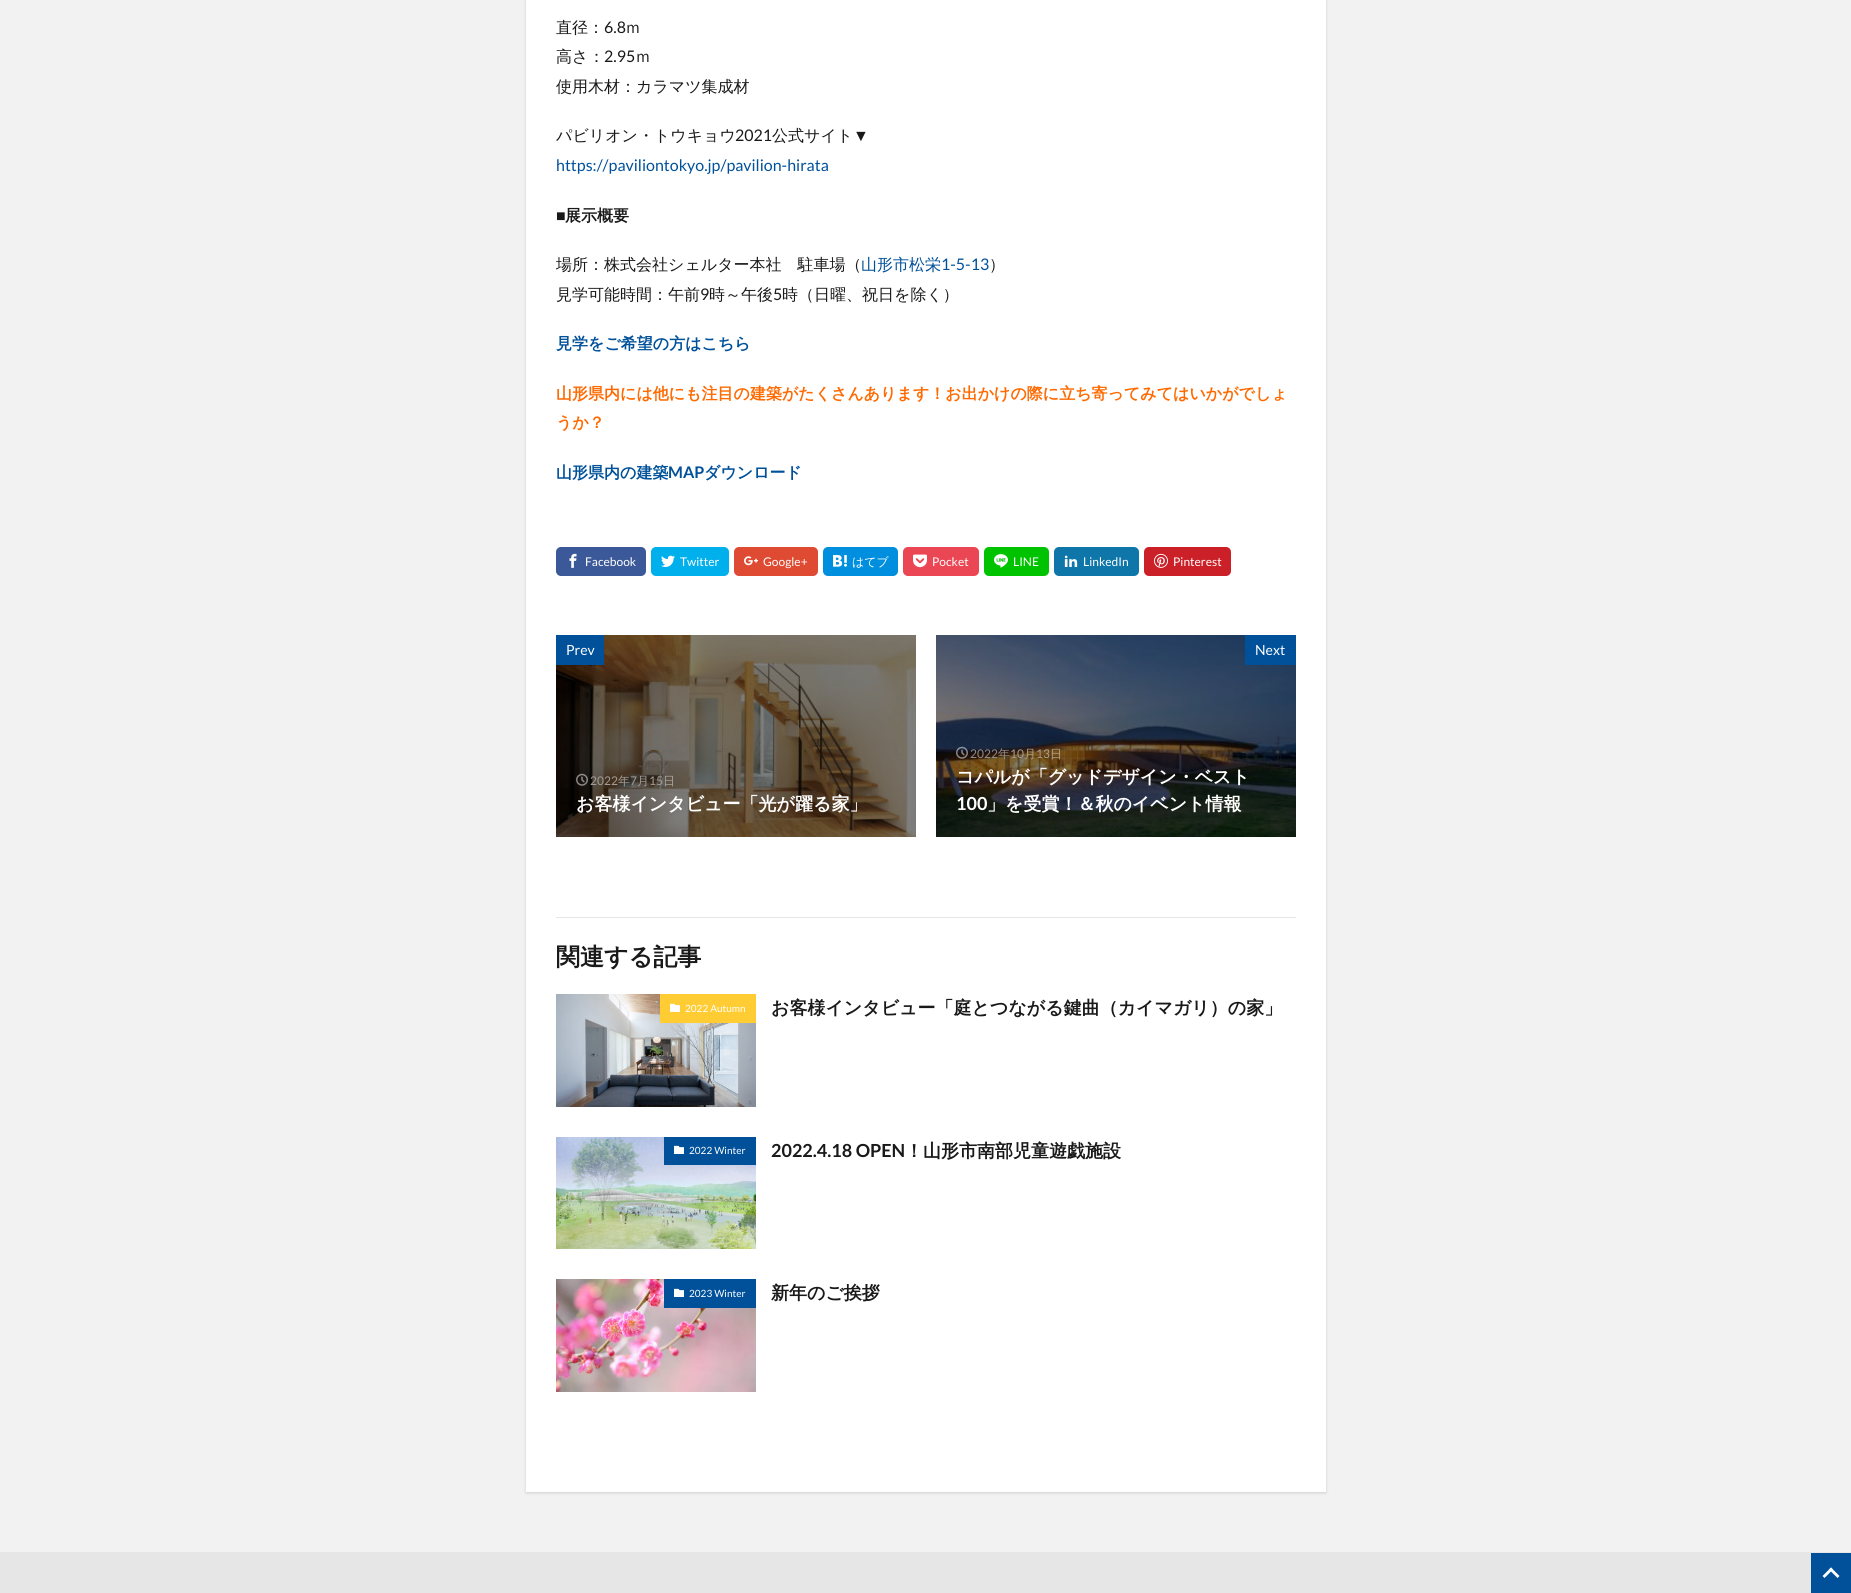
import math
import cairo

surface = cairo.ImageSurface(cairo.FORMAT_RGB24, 1851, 1593)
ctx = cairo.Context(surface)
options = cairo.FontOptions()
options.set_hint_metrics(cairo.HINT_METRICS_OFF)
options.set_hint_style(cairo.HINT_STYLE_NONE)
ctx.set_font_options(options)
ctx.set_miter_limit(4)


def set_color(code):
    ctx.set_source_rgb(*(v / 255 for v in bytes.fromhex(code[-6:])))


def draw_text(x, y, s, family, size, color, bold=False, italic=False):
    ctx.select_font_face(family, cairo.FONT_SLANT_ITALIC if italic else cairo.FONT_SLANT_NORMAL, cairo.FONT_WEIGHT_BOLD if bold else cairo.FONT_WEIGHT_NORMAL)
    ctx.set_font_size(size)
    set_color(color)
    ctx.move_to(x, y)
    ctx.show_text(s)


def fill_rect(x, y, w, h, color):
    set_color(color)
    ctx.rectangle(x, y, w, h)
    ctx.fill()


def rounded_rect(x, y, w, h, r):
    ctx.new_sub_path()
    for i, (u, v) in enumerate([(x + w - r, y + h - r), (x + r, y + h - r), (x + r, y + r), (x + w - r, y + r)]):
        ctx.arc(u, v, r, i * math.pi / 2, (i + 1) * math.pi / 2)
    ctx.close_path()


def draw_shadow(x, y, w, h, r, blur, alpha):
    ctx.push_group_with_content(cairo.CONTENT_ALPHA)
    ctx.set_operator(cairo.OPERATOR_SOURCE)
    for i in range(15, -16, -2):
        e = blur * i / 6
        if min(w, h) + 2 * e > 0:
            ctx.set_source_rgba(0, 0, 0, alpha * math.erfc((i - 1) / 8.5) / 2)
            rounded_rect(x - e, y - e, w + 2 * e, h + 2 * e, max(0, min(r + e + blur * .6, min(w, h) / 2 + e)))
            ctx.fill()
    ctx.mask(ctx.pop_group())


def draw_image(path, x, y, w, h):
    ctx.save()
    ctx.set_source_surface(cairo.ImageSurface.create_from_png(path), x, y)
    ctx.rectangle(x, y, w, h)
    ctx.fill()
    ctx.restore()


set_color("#f2f2f2")
ctx.paint()
set_color("#000000")
draw_shadow(526, -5, 800, 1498, 0, 1.5, 0.15)
fill_rect(526, 0, 800, 1492, "#ffffff")
draw_text(556, 33, "直径：", "WenQuanYi Zen Hei Medium", 16, "#191919")
draw_text(604, 33, "6.8", "Lato", 16, "#191919")
draw_text(625, 33, "ｍ", "WenQuanYi Zen Hei Medium", 16, "#191919")
draw_text(556, 62, "高さ：", "WenQuanYi Zen Hei Medium", 16, "#191919")
draw_text(604, 62, "2.95", "Lato", 16, "#191919")
draw_text(635, 62, "ｍ", "WenQuanYi Zen Hei Medium", 16, "#191919")
draw_text(556, 92, "使用木材：カラマツ集成材", "WenQuanYi Zen Hei Medium", 16, "#191919")
draw_text(556, 141, "パビリオン・トウキョウ", "WenQuanYi Zen Hei Medium", 16, "#191919")
draw_text(735, 141, "2021", "Lato", 16, "#191919")
draw_text(772, 141, "公式サイト", "WenQuanYi Zen Hei Medium", 16, "#191919")
draw_text(853, 141, "▼", "Liberation Sans", 16, "#191919")
draw_text(556, 171, "https://paviliontokyo.jp/pavilion-hirata", "Lato", 16, "#00519a")
draw_text(556, 221, "■", "Liberation Sans", 16, "#191919", bold=True)
draw_text(565, 221, "展示概要", "WenQuanYi Zen Hei", 16, "#191919", bold=True)
draw_text(556, 270, "場所：株式会社シェルター本社　駐車場（", "WenQuanYi Zen Hei Medium", 16, "#191919")
draw_text(861, 270, "山形市松栄", "WenQuanYi Zen Hei Medium", 16, "#00519a")
draw_text(941, 270, "1-5-13", "Lato", 16, "#00519a")
draw_text(989, 270, "）", "WenQuanYi Zen Hei Medium", 16, "#191919")
draw_text(556, 300, "見学可能時間：午前", "WenQuanYi Zen Hei Medium", 16, "#191919")
draw_text(700, 300, "9", "Lato", 16, "#191919")
draw_text(709, 300, "時～午後", "WenQuanYi Zen Hei Medium", 16, "#191919")
draw_text(773, 300, "5", "Lato", 16, "#191919")
draw_text(782, 300, "時（日曜、祝日を除く）", "WenQuanYi Zen Hei Medium", 16, "#191919")
draw_text(556, 349, "見学をご希望の方はこちら", "WenQuanYi Zen Hei", 16, "#00519a", bold=True)
draw_text(556, 399, "山形県内には他にも注目の建築がたくさんあります！お出かけの際に立ち寄ってみてはいかがでしょ", "WenQuanYi Zen Hei", 16, "#ff6900", bold=True)
draw_text(556, 428, "うか？", "WenQuanYi Zen Hei", 16, "#ff6900", bold=True)
draw_text(556, 478, "山形県内の建築", "WenQuanYi Zen Hei", 16, "#00519a", bold=True)
draw_text(668, 478, "MAP", "Lato", 16, "#00519a", bold=True)
draw_text(704, 478, "ダウンロード", "WenQuanYi Zen Hei", 16, "#00519a", bold=True)
set_color("#3b5998")
rounded_rect(556, 547, 90, 29, 5)
ctx.fill()
draw_image("assets/img1.png", 569, 553, 8, 15)
draw_text(585, 566, "Facebook", "Lato", 12, "#ffffff")
set_color("#00b0ed")
rounded_rect(651, 547, 78, 29, 5)
ctx.fill()
draw_image("assets/img2.png", 661, 555, 14, 12)
draw_text(680, 566, "Twitter", "Lato", 12, "#ffffff")
set_color("#df4a32")
rounded_rect(734, 547, 84, 29, 5)
ctx.fill()
draw_image("assets/img3.png", 744, 556, 14, 10)
draw_text(763, 566, "Google+", "Lato", 12, "#ffffff")
set_color("#008fde")
rounded_rect(823, 547, 75, 29, 5)
ctx.fill()
draw_image("assets/img4.png", 833, 555, 14, 12)
draw_text(852, 566, "はてブ", "WenQuanYi Zen Hei Medium", 12, "#ffffff")
set_color("#eb4654")
rounded_rect(903, 547, 76, 29, 5)
ctx.fill()
draw_image("assets/img5.png", 913, 554, 14, 14)
draw_text(932, 566, "Pocket", "Lato", 12, "#ffffff")
set_color("#00c300")
rounded_rect(984, 547, 65, 29, 5)
ctx.fill()
draw_image("assets/img6.png", 994, 554, 14, 14)
draw_text(1013, 566, "LINE", "Lato", 12, "#ffffff")
set_color("#0e76a8")
rounded_rect(1054, 547, 85, 29, 5)
ctx.fill()
draw_image("assets/img7.png", 1064, 555, 14, 12)
draw_text(1083, 566, "LinkedIn", "Lato", 12, "#ffffff")
set_color("#cb2027")
rounded_rect(1144, 547, 87, 29, 5)
ctx.fill()
draw_image("assets/img8.png", 1154, 553, 14, 15)
draw_text(1173, 566, "Pinterest", "Lato", 12, "#ffffff")
draw_image("assets/img9.png", 556, 635, 360, 202)
fill_rect(556, 635, 48, 30, "#00519a")
draw_text(566, 655, "Prev", "Lato", 14, "#ffffff")
draw_image("assets/img10.png", 576, 773, 12, 13)
draw_text(590, 785, "2022", "Lato", 12, "#a39d96")
draw_text(618, 785, "年", "WenQuanYi Zen Hei Medium", 12, "#a39d96")
draw_text(630, 785, "7", "Lato", 12, "#a39d96")
draw_text(637, 785, "月", "WenQuanYi Zen Hei Medium", 12, "#a39d96")
draw_text(649, 785, "15", "Lato", 12, "#a39d96")
draw_text(663, 785, "日", "WenQuanYi Zen Hei Medium", 12, "#ada8a2")
draw_text(576, 810, "お客様インタビュー「光が躍る家」", "WenQuanYi Zen Hei", 18, "#ffffff", bold=True)
draw_image("assets/img11.png", 936, 635, 360, 202)
fill_rect(1245, 635, 51, 30, "#00519a")
draw_text(1255, 655, "Next", "Lato", 14, "#ffffff")
draw_image("assets/img12.png", 956, 746, 12, 13)
draw_text(970, 758, "2022", "Lato", 12, "#918c8a")
draw_text(998, 758, "年", "WenQuanYi Zen Hei Medium", 12, "#9b918a")
draw_text(1010, 758, "10", "Lato", 12, "#a59b90")
draw_text(1024, 758, "月", "WenQuanYi Zen Hei Medium", 12, "#ada08f")
draw_text(1036, 758, "13", "Lato", 12, "#ada08f")
draw_text(1050, 758, "日", "WenQuanYi Zen Hei Medium", 12, "#b5a38b")
draw_text(956, 783, "コパルが「グッドデザイン・ベスト", "WenQuanYi Zen Hei", 18, "#ffffff", bold=True)
draw_text(956, 810, "100", "Lato", 18, "#ffffff", bold=True)
draw_text(987, 810, "」を受賞！＆秋のイベント情報", "WenQuanYi Zen Hei", 18, "#ffffff", bold=True)
fill_rect(556, 917, 740, 1, "#e6e6e6")
draw_text(556, 965, "関連する記事", "WenQuanYi Zen Hei", 24, "#191919", bold=True)
draw_image("assets/img13.png", 556, 994, 200, 113)
fill_rect(660, 994, 96, 29, "#ffcc33")
draw_image("assets/img14.png", 670, 1003, 10, 9)
draw_text(685, 1012, "2022 Autumn", "Lato", 10, "#ffffff")
draw_text(771, 1014, "お客様インタビュー「庭とつながる鍵曲（カイマガリ）の家」", "WenQuanYi Zen Hei", 18, "#191919", bold=True)
draw_image("assets/img15.png", 556, 1137, 200, 112)
fill_rect(664, 1137, 92, 28, "#00519a")
draw_image("assets/img16.png", 674, 1145, 10, 9)
draw_text(689, 1154, "2022 Winter", "Lato", 10, "#ffffff")
draw_text(771, 1157, "2022.4.18 OPEN", "Lato", 18, "#191919", bold=True)
draw_text(905, 1157, "！山形市南部児童遊戯施設", "WenQuanYi Zen Hei", 18, "#191919", bold=True)
draw_image("assets/img17.png", 556, 1279, 200, 113)
fill_rect(664, 1279, 92, 29, "#00519a")
draw_image("assets/img16.png", 674, 1288, 10, 9)
draw_text(689, 1297, "2023 Winter", "Lato", 10, "#ffffff")
draw_text(771, 1299, "新年のご挨拶", "WenQuanYi Zen Hei", 18, "#191919", bold=True)
fill_rect(0, 1552, 1851, 41, "#e6e6e6")
fill_rect(1811, 1553, 40, 40, "#00519a")
set_color("#ffffff")
ctx.new_path()
ctx.move_to(1822.5, 1576)
ctx.line_to(1831, 1567.5)
ctx.line_to(1833, 1569.5)
ctx.line_to(1824.5, 1578)
ctx.close_path()
ctx.fill()
ctx.new_path()
ctx.move_to(1829, 1569.5)
ctx.line_to(1831, 1567.5)
ctx.line_to(1839.5, 1576)
ctx.line_to(1837.5, 1578)
ctx.close_path()
ctx.fill()
surface.write_to_png("output.png")
